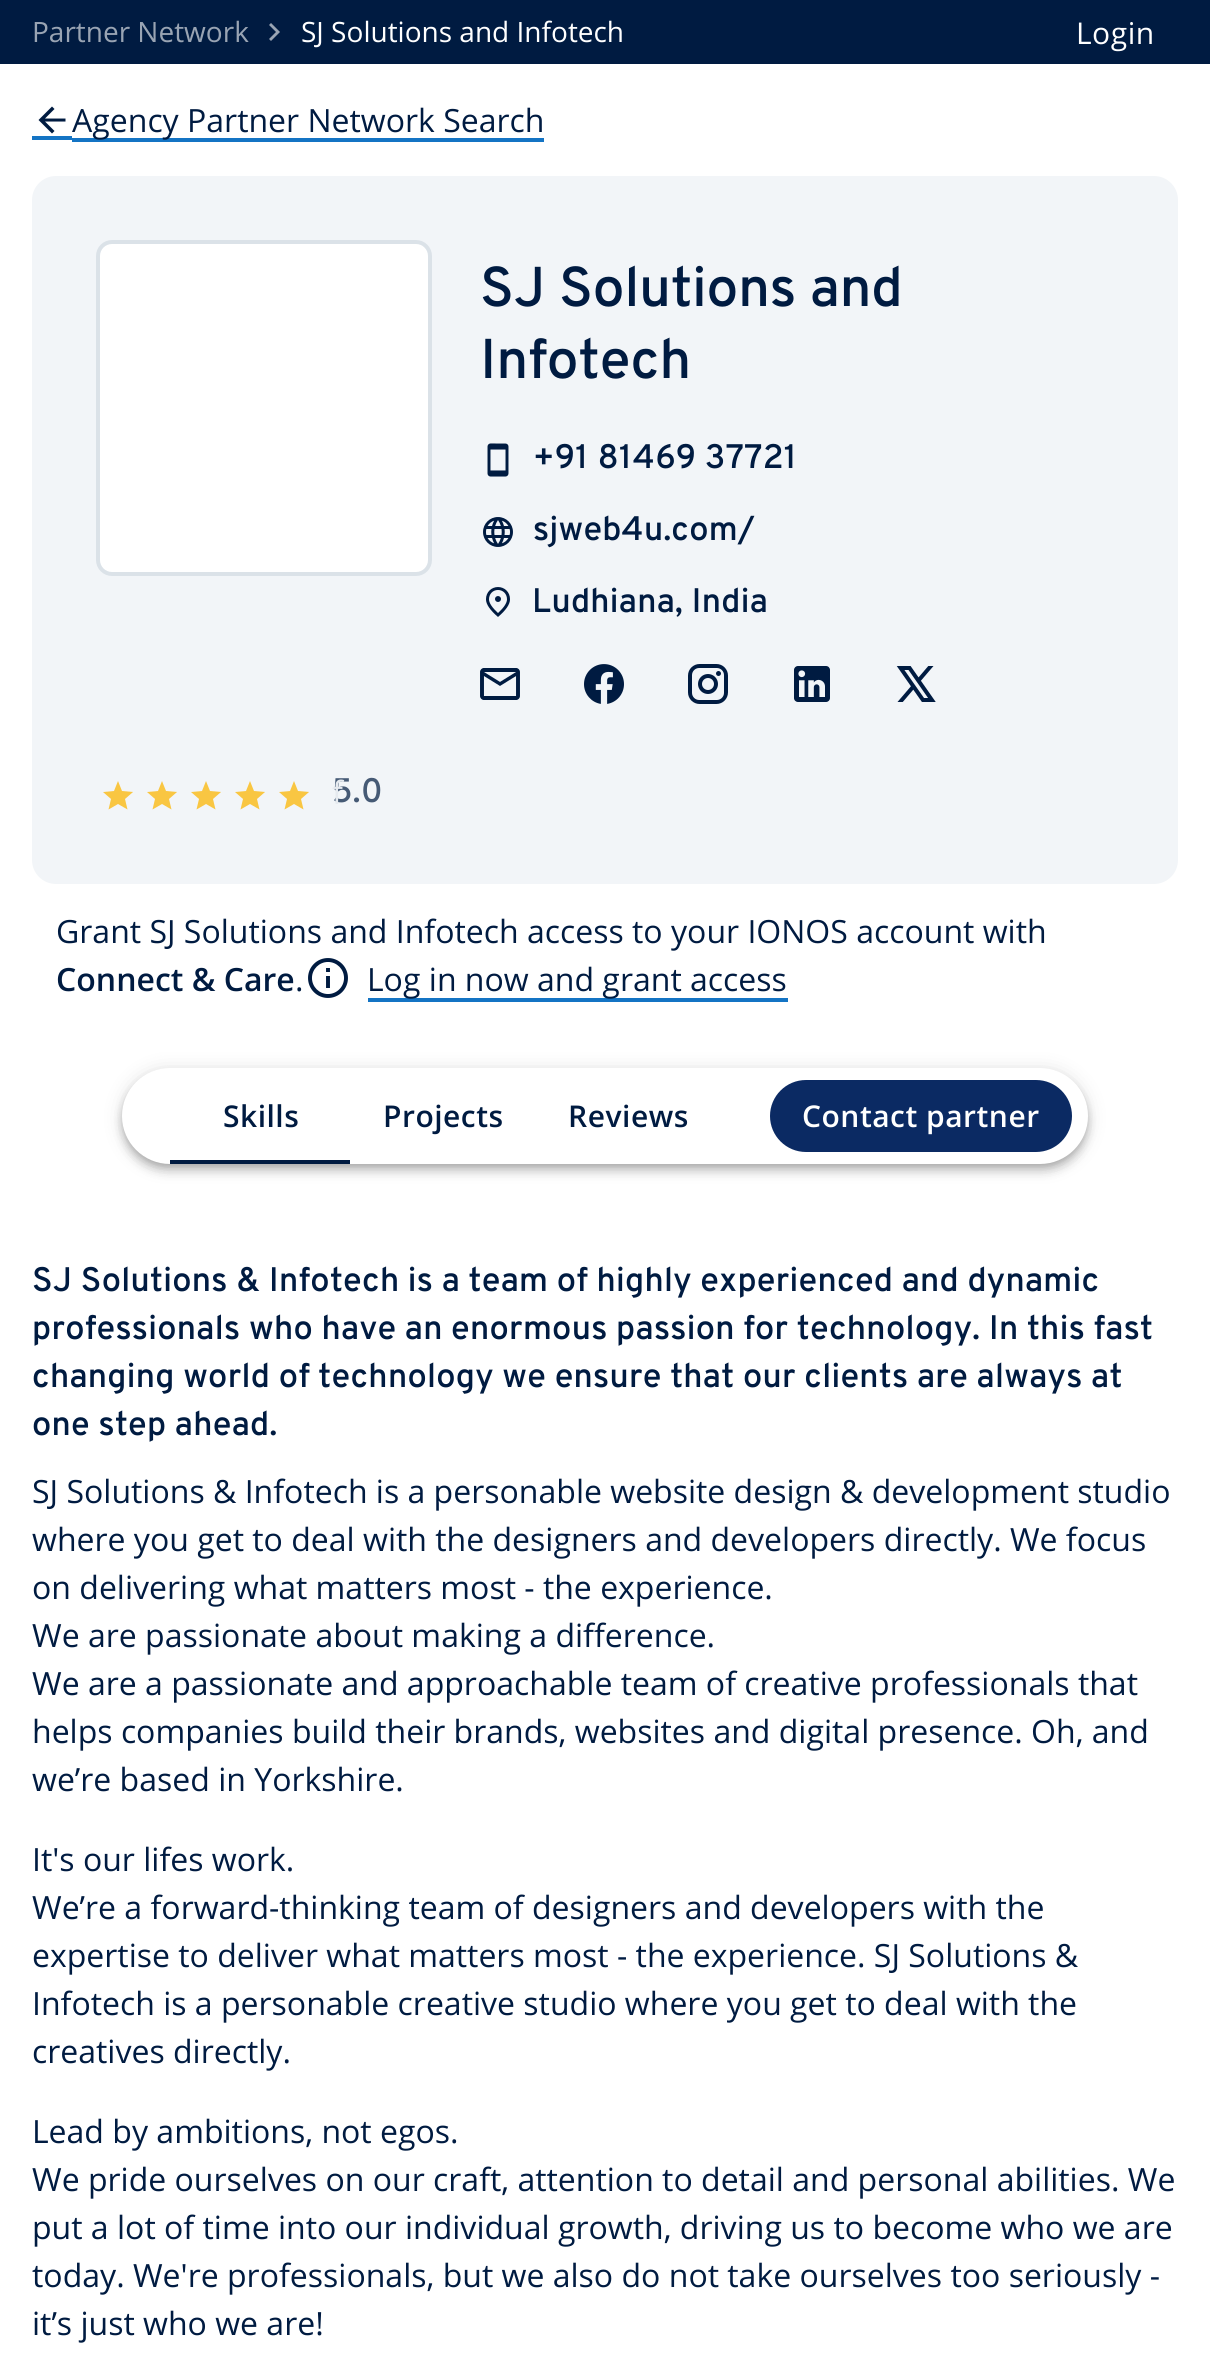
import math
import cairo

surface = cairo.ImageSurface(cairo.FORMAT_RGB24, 1210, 2364)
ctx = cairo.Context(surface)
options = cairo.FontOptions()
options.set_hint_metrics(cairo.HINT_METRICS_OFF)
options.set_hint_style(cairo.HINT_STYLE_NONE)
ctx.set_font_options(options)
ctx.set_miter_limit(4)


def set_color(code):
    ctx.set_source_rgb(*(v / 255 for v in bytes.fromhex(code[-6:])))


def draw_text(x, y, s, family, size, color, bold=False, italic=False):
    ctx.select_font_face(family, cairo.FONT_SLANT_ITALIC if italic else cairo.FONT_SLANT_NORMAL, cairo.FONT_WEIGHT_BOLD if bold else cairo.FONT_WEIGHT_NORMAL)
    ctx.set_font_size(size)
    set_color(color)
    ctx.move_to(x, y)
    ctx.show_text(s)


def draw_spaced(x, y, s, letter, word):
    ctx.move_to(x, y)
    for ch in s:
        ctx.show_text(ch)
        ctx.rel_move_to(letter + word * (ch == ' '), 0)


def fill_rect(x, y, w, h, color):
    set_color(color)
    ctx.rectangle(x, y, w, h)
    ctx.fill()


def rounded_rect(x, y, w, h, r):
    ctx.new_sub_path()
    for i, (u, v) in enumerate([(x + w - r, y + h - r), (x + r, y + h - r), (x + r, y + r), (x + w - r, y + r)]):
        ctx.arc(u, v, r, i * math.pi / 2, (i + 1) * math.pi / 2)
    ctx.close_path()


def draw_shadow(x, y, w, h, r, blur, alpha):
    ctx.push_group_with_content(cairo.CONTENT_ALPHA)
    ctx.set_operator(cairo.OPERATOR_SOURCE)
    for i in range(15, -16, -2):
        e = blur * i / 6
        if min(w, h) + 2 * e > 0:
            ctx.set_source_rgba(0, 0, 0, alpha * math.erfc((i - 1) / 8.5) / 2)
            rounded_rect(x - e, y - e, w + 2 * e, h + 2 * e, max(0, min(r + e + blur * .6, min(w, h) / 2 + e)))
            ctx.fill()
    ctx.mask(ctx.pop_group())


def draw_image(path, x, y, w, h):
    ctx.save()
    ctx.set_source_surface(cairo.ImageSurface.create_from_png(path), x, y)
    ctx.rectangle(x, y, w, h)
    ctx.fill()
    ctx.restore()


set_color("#ffffff")
ctx.paint()
fill_rect(0, 0, 1210, 64, "#001b41")
draw_text(32, 42, "Partner Network", "Open Sans", 28, "#99a4b3")
ctx.new_path()
ctx.move_to(271, 23)
ctx.line_to(269, 25)
ctx.line_to(276, 32)
ctx.line_to(269, 39)
ctx.line_to(271, 41)
ctx.line_to(280, 32)
ctx.close_path()
ctx.fill()
draw_text(301, 42, "SJ Solutions and Infotech", "Open Sans", 28, "#ffffff")
ctx.set_font_size(30)
draw_spaced(1076, 44, "Login", 0.5, 0)
fill_rect(32, 136, 40, 4, "#1474c4")
fill_rect(72, 138, 472, 4, "#1474c4")
set_color("#001b41")
ctx.new_path()
ctx.move_to(65.5, 118.5)
ctx.line_to(45, 118.5)
ctx.line_to(54.5, 109)
ctx.line_to(52, 106.5)
ctx.line_to(38.5, 120)
ctx.line_to(52, 133.5)
ctx.line_to(54.5, 131)
ctx.line_to(45, 121.5)
ctx.line_to(65.5, 121.5)
ctx.close_path()
ctx.fill()
draw_text(72, 132, "Agency Partner Network Search", "Open Sans", 32, "#001b41")
set_color("#f2f5f8")
rounded_rect(32, 176, 1146, 708, 24)
ctx.fill()
set_color("#ffffff")
rounded_rect(98, 242, 332, 332, 14)
ctx.fill_preserve()
set_color("#dbe2e8")
ctx.set_line_width(4)
ctx.stroke()
draw_text(480, 306, "SJ Solutions and", "Overpass SemiBold", 56, "#001b41")
draw_text(480, 378, "Infotech", "Overpass SemiBold", 56, "#001b41")
draw_image("assets/img1.png", 487, 443, 22, 34)
ctx.set_font_size(34)
draw_spaced(533, 468, "+91 81469 37721", 0.3, 0)
draw_image("assets/img2.png", 483, 517, 30, 30)
draw_spaced(533, 540, "sjweb4u.com/", 0.3, 0)
draw_image("assets/img3.png", 486, 587, 24, 30)
draw_spaced(532, 612, "Ludhiana, India", 0.3, 0)
draw_image("assets/img4.png", 480, 668, 40, 32)
draw_image("assets/img5.png", 584, 664, 40, 40)
draw_image("assets/img6.png", 688, 664, 40, 40)
draw_image("assets/img7.png", 794, 666, 36, 36)
draw_image("assets/img8.png", 896, 666, 40, 36)
set_color("#465a75")
draw_spaced(332, 802, "5.0", 0.3, 0)
set_color("#f9c642")
ctx.new_path()
ctx.move_to(118, 804)
ctx.line_to(127.5, 809.5)
ctx.line_to(125, 799)
ctx.line_to(133, 792)
ctx.line_to(122, 791)
ctx.line_to(118, 781)
ctx.line_to(114, 791)
ctx.line_to(103, 792)
ctx.line_to(111, 799)
ctx.line_to(108.5, 809.5)
ctx.close_path()
ctx.fill()
ctx.new_path()
ctx.move_to(162, 804)
ctx.line_to(171.5, 809.5)
ctx.line_to(169, 799)
ctx.line_to(177, 792)
ctx.line_to(166, 791)
ctx.line_to(162, 781)
ctx.line_to(158, 791)
ctx.line_to(147, 792)
ctx.line_to(155, 799)
ctx.line_to(152.5, 809.5)
ctx.close_path()
ctx.fill()
ctx.new_path()
ctx.move_to(250, 804)
ctx.line_to(259.5, 809.5)
ctx.line_to(257, 799)
ctx.line_to(265, 792)
ctx.line_to(254, 791)
ctx.line_to(250, 781)
ctx.line_to(246, 791)
ctx.line_to(235, 792)
ctx.line_to(243, 799)
ctx.line_to(240.5, 809.5)
ctx.close_path()
ctx.fill()
ctx.new_path()
ctx.move_to(294, 804)
ctx.line_to(303.5, 809.5)
ctx.line_to(301, 799)
ctx.line_to(309, 792)
ctx.line_to(298, 791)
ctx.line_to(294, 781)
ctx.line_to(290, 791)
ctx.line_to(279, 792)
ctx.line_to(287, 799)
ctx.line_to(284.5, 809.5)
ctx.close_path()
ctx.fill()
ctx.new_path()
ctx.move_to(206, 804)
ctx.line_to(215.5, 809.5)
ctx.line_to(213, 799)
ctx.line_to(221, 792)
ctx.line_to(210, 791)
ctx.line_to(206, 781)
ctx.line_to(202, 791)
ctx.line_to(191, 792)
ctx.line_to(199, 799)
ctx.line_to(196.5, 809.5)
ctx.close_path()
ctx.fill()
draw_text(332, 804, "f", "Open Sans", 32, "#e6eaef")
draw_text(56, 943, "Grant SJ Solutions and Infotech access to your IONOS account with", "Open Sans", 32, "#001b41")
draw_text(56, 991, "Connect & Care", "Open Sans SemiBold", 32, "#001b41")
draw_text(295, 991, ".", "Open Sans", 32, "#001b41")
draw_image("assets/img9.png", 308, 958, 40, 40)
fill_rect(368, 998, 420, 4, "#1474c4")
draw_text(367, 991, "Log in now and grant access", "Open Sans", 32, "#001b41")
set_color("#000000")
draw_shadow(122, 1070, 966, 96, 48, 10, 0.12)
draw_shadow(122, 1076, 966, 96, 48, 5, 0.14)
draw_shadow(124, 1074, 962, 92, 46, 4, 0.2)
set_color("#ffffff")
rounded_rect(122, 1068, 966, 96, 48)
ctx.fill()
ctx.select_font_face("Open Sans SemiBold")
ctx.set_font_size(30)
set_color("#001b41")
draw_spaced(223, 1127, "Skills", 0.5, 0)
fill_rect(170, 1160, 180, 4, "#001b41")
draw_spaced(383, 1127, "Projects", 0.5, 0)
draw_spaced(568, 1127, "Reviews", 0.5, 0)
set_color("#0b2a63")
rounded_rect(770, 1080, 302, 72, 36)
ctx.fill()
set_color("#ffffff")
draw_spaced(802, 1127, "Contact partner", 0.5, 0)
ctx.select_font_face("Overpass SemiBold")
ctx.set_font_size(34)
set_color("#001b41")
draw_spaced(32, 1291, "SJ Solutions & Infotech is a team of highly experienced and dynamic", 0.3, 0)
draw_spaced(32, 1339, "professionals who have an enormous passion for technology. In this fast", 0.3, 0)
draw_spaced(32, 1387, "changing world of technology we ensure that our clients are always at", 0.3, 0)
draw_spaced(32, 1435, "one step ahead.", 0.3, 0)
draw_text(32, 1503, "SJ Solutions & Infotech is a personable website design & development studio", "Open Sans", 32, "#001b41")
draw_text(32, 1551, "where you get to deal with the designers and developers directly. We focus", "Open Sans", 32, "#001b41")
draw_text(32, 1599, "on delivering what matters most - the experience.", "Open Sans", 32, "#001b41")
draw_text(32, 1647, "We are passionate about making a difference.", "Open Sans", 32, "#001b41")
draw_text(32, 1695, "We are a passionate and approachable team of creative professionals that", "Open Sans", 32, "#001b41")
draw_text(32, 1743, "helps companies build their brands, websites and digital presence. Oh, and", "Open Sans", 32, "#001b41")
draw_text(32, 1791, "we’re based in Yorkshire.", "Open Sans", 32, "#001b41")
draw_text(32, 1871, "It's our lifes work.", "Open Sans", 32, "#001b41")
draw_text(32, 1919, "We’re a forward-thinking team of designers and developers with the", "Open Sans", 32, "#001b41")
draw_text(32, 1967, "expertise to deliver what matters most - the experience. SJ Solutions &", "Open Sans", 32, "#001b41")
draw_text(32, 2015, "Infotech is a personable creative studio where you get to deal with the", "Open Sans", 32, "#001b41")
draw_text(32, 2063, "creatives directly.", "Open Sans", 32, "#001b41")
draw_text(32, 2143, "Lead by ambitions, not egos.", "Open Sans", 32, "#001b41")
draw_text(32, 2191, "We pride ourselves on our craft, attention to detail and personal abilities. We", "Open Sans", 32, "#001b41")
draw_text(32, 2239, "put a lot of time into our individual growth, driving us to become who we are", "Open Sans", 32, "#001b41")
draw_text(32, 2287, "today. We're professionals, but we also do not take ourselves too seriously -", "Open Sans", 32, "#001b41")
draw_text(32, 2335, "it’s just who we are!", "Open Sans", 32, "#001b41")
surface.write_to_png("output.png")
